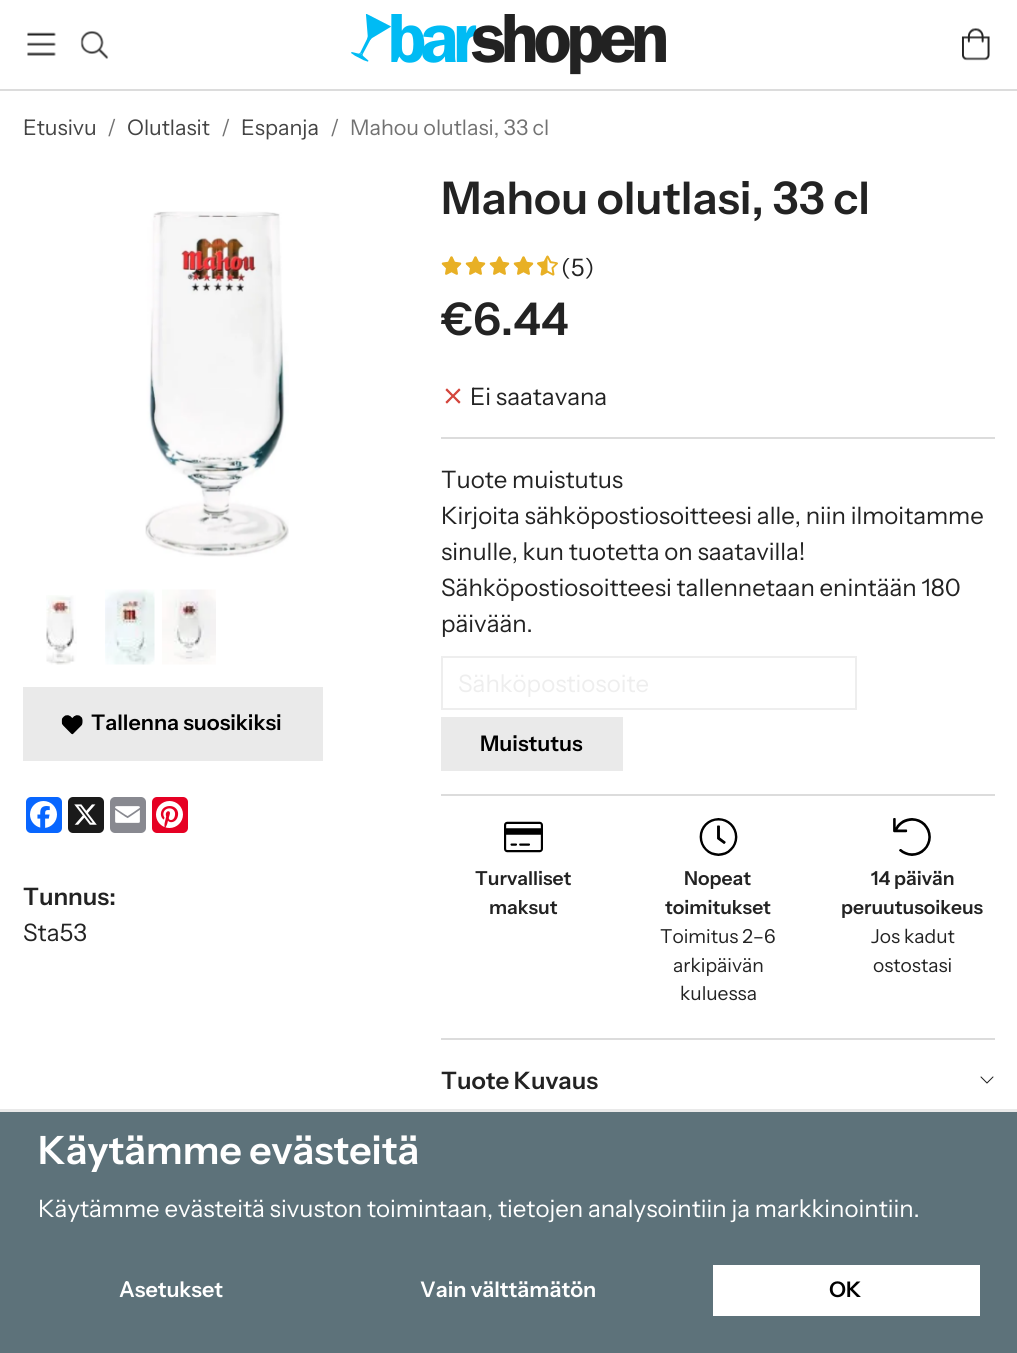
import math
import cairo

surface = cairo.ImageSurface(cairo.FORMAT_RGB24, 1017, 1353)
ctx = cairo.Context(surface)
options = cairo.FontOptions()
options.set_hint_metrics(cairo.HINT_METRICS_OFF)
options.set_hint_style(cairo.HINT_STYLE_NONE)
ctx.set_font_options(options)
ctx.set_miter_limit(4)


def set_color(code):
    ctx.set_source_rgb(*(v / 255 for v in bytes.fromhex(code[-6:])))


def draw_text(x, y, s, family, size, color, bold=False, italic=False):
    ctx.select_font_face(family, cairo.FONT_SLANT_ITALIC if italic else cairo.FONT_SLANT_NORMAL, cairo.FONT_WEIGHT_BOLD if bold else cairo.FONT_WEIGHT_NORMAL)
    ctx.set_font_size(size)
    set_color(color)
    ctx.move_to(x, y)
    ctx.show_text(s)


def fill_rect(x, y, w, h, color):
    set_color(color)
    ctx.rectangle(x, y, w, h)
    ctx.fill()


def rounded_rect(x, y, w, h, r):
    ctx.new_sub_path()
    for i, (u, v) in enumerate([(x + w - r, y + h - r), (x + r, y + h - r), (x + r, y + r), (x + w - r, y + r)]):
        ctx.arc(u, v, r, i * math.pi / 2, (i + 1) * math.pi / 2)
    ctx.close_path()


def draw_image(path, x, y, w, h):
    ctx.save()
    ctx.set_source_surface(cairo.ImageSurface.create_from_png(path), x, y)
    ctx.rectangle(x, y, w, h)
    ctx.fill()
    ctx.restore()


set_color("#ffffff")
ctx.paint()
fill_rect(0, 89, 1017, 2, "#dcdcdc")
draw_image("assets/img1.png", 27, 32, 29, 24)
draw_image("assets/img2.png", 80, 31, 29, 28)
draw_image("assets/img3.png", 351, 14, 315, 61)
draw_image("assets/img4.png", 961, 28, 29, 33)
draw_text(23, 135, "Etusivu", "Instrument Sans", 21.5, "#444444")
draw_text(107, 135, "/", "Instrument Sans", 21.5, "#727272")
draw_text(127, 135, "Olutlasit", "Instrument Sans", 21.5, "#444444")
draw_text(221, 135, "/", "Instrument Sans", 21.5, "#727272")
draw_text(241, 135, "Espanja", "Instrument Sans", 21.5, "#444444")
draw_text(330, 135, "/", "Instrument Sans", 21.5, "#727272")
draw_text(350, 135, "Mahou olutlasi, 33 cl", "Instrument Sans", 21.5, "#727272")
draw_image("assets/img5.png", 145, 211, 144, 346)
draw_image("assets/img6.png", 46, 595, 31, 70)
draw_image("assets/img7.png", 105, 589, 50, 76)
draw_image("assets/img8.png", 162, 589, 54, 76)
draw_text(441, 214, "Mahou olutlasi, 33 cl", "Instrument Sans SemiBold", 45, "#232323")
draw_image("assets/img9.png", 441, 256, 21, 19)
draw_image("assets/img9.png", 465, 256, 21, 19)
draw_image("assets/img10.png", 489, 256, 21, 19)
draw_image("assets/img9.png", 513, 256, 21, 19)
draw_image("assets/img11.png", 537, 255, 21, 21)
draw_text(561, 276, "(5)", "Instrument Sans", 24, "#232323")
draw_text(441, 335, "€6.44", "Instrument Sans SemiBold", 45, "#232323")
draw_image("assets/img12.png", 445, 388, 16, 16)
draw_text(470, 405, "Ei saatavana", "Instrument Sans", 24, "#232323")
fill_rect(441, 437, 554, 2, "#dcdcdc")
fill_rect(441, 794, 554, 2, "#dcdcdc")
draw_text(441, 488, "Tuote muistutus", "Instrument Sans", 24, "#232323")
draw_text(441, 524, "Kirjoita sähköpostiosoitteesi alle, niin ilmoitamme", "Instrument Sans", 24, "#232323")
draw_text(441, 560, "sinulle, kun tuotetta on saatavilla!", "Instrument Sans", 24, "#232323")
draw_text(441, 596, "Sähköpostiosoitteesi tallennetaan enintään 180", "Instrument Sans", 24, "#232323")
draw_text(441, 632, "päivään.", "Instrument Sans", 24, "#232323")
ctx.rectangle(442, 657, 414, 52)
set_color("#eeeeee")
ctx.stroke()
draw_text(458, 692, "Sähköpostiosoite", "Instrument Sans", 24, "#eeeeee")
fill_rect(441, 717, 182, 54, "#eaeaea")
draw_text(480, 751, "Muistutus", "Instrument Sans SemiBold", 21.5, "#000000")
draw_image("assets/img13.png", 504, 821, 39, 32)
draw_text(475, 885, "Turvalliset", "Instrument Sans SemiBold", 19.25, "#232323")
draw_text(489, 914, "maksut", "Instrument Sans SemiBold", 19.25, "#232323")
draw_image("assets/img14.png", 699, 818, 39, 38)
draw_text(684, 885, "Nopeat", "Instrument Sans SemiBold", 19.25, "#232323")
draw_text(665, 914, "toimitukset", "Instrument Sans SemiBold", 19.25, "#232323")
draw_text(660, 943, "Toimitus 2–6", "Instrument Sans", 19.25, "#232323")
draw_text(673, 972, "arkipäivän", "Instrument Sans", 19.25, "#232323")
draw_text(680, 1000, "kuluessa", "Instrument Sans", 19.25, "#232323")
draw_image("assets/img15.png", 893, 818, 38, 38)
draw_text(871, 885, "14 päivän", "Instrument Sans SemiBold", 19.25, "#232323")
draw_text(841, 914, "peruutusoikeus", "Instrument Sans SemiBold", 19.25, "#232323")
draw_text(871, 943, "Jos kadut", "Instrument Sans", 19.25, "#232323")
draw_text(873, 972, "ostostasi", "Instrument Sans", 19.25, "#232323")
fill_rect(441, 1038, 554, 2, "#dcdcdc")
draw_text(441, 1089, "Tuote Kuvaus", "Instrument Sans SemiBold", 24, "#232323")
draw_image("assets/img16.png", 980, 1076, 14, 8)
fill_rect(23, 687, 300, 74, "#eaeaea")
draw_image("assets/img17.png", 61, 715, 22, 20)
draw_text(91, 730, "Tallenna suosikiksi", "Instrument Sans SemiBold", 21.5, "#000000")
set_color("#0866ff")
rounded_rect(26, 797, 36, 36, 5)
ctx.fill()
draw_image("assets/img18.png", 30, 801, 27, 27)
set_color("#1a1a1a")
rounded_rect(68, 797, 36, 36, 5)
ctx.fill()
draw_image("assets/img19.png", 74, 804, 23, 21)
set_color("#888990")
rounded_rect(110, 797, 36, 36, 5)
ctx.fill()
draw_image("assets/img20.png", 115, 806, 25, 17)
set_color("#e60023")
rounded_rect(152, 797, 36, 36, 5)
ctx.fill()
draw_image("assets/img21.png", 156, 801, 27, 27)
draw_text(23, 905, "Tunnus:", "Instrument Sans SemiBold", 24, "#232323")
draw_text(23, 941, "Sta53", "Instrument Sans", 24, "#232323")
fill_rect(0, 1112, 1017, 241, "#5d727a")
fill_rect(0, 1109, 1017, 3, "#e9e9e9")
draw_text(38, 1164, "Käytämme evästeitä", "Instrument Sans SemiBold", 39, "#ffffff")
draw_text(38, 1217, "Käytämme evästeitä sivuston toimintaan, tietojen analysointiin ja markkinointiin.", "Instrument Sans", 24, "#ffffff")
draw_text(119, 1297, "Asetukset", "Instrument Sans SemiBold", 21.5, "#ffffff")
draw_text(420, 1297, "Vain välttämätön", "Instrument Sans SemiBold", 21.5, "#ffffff")
fill_rect(713, 1265, 267, 51, "#ffffff")
draw_text(829, 1297, "OK", "Instrument Sans SemiBold", 21.5, "#000000")
surface.write_to_png("output.png")
